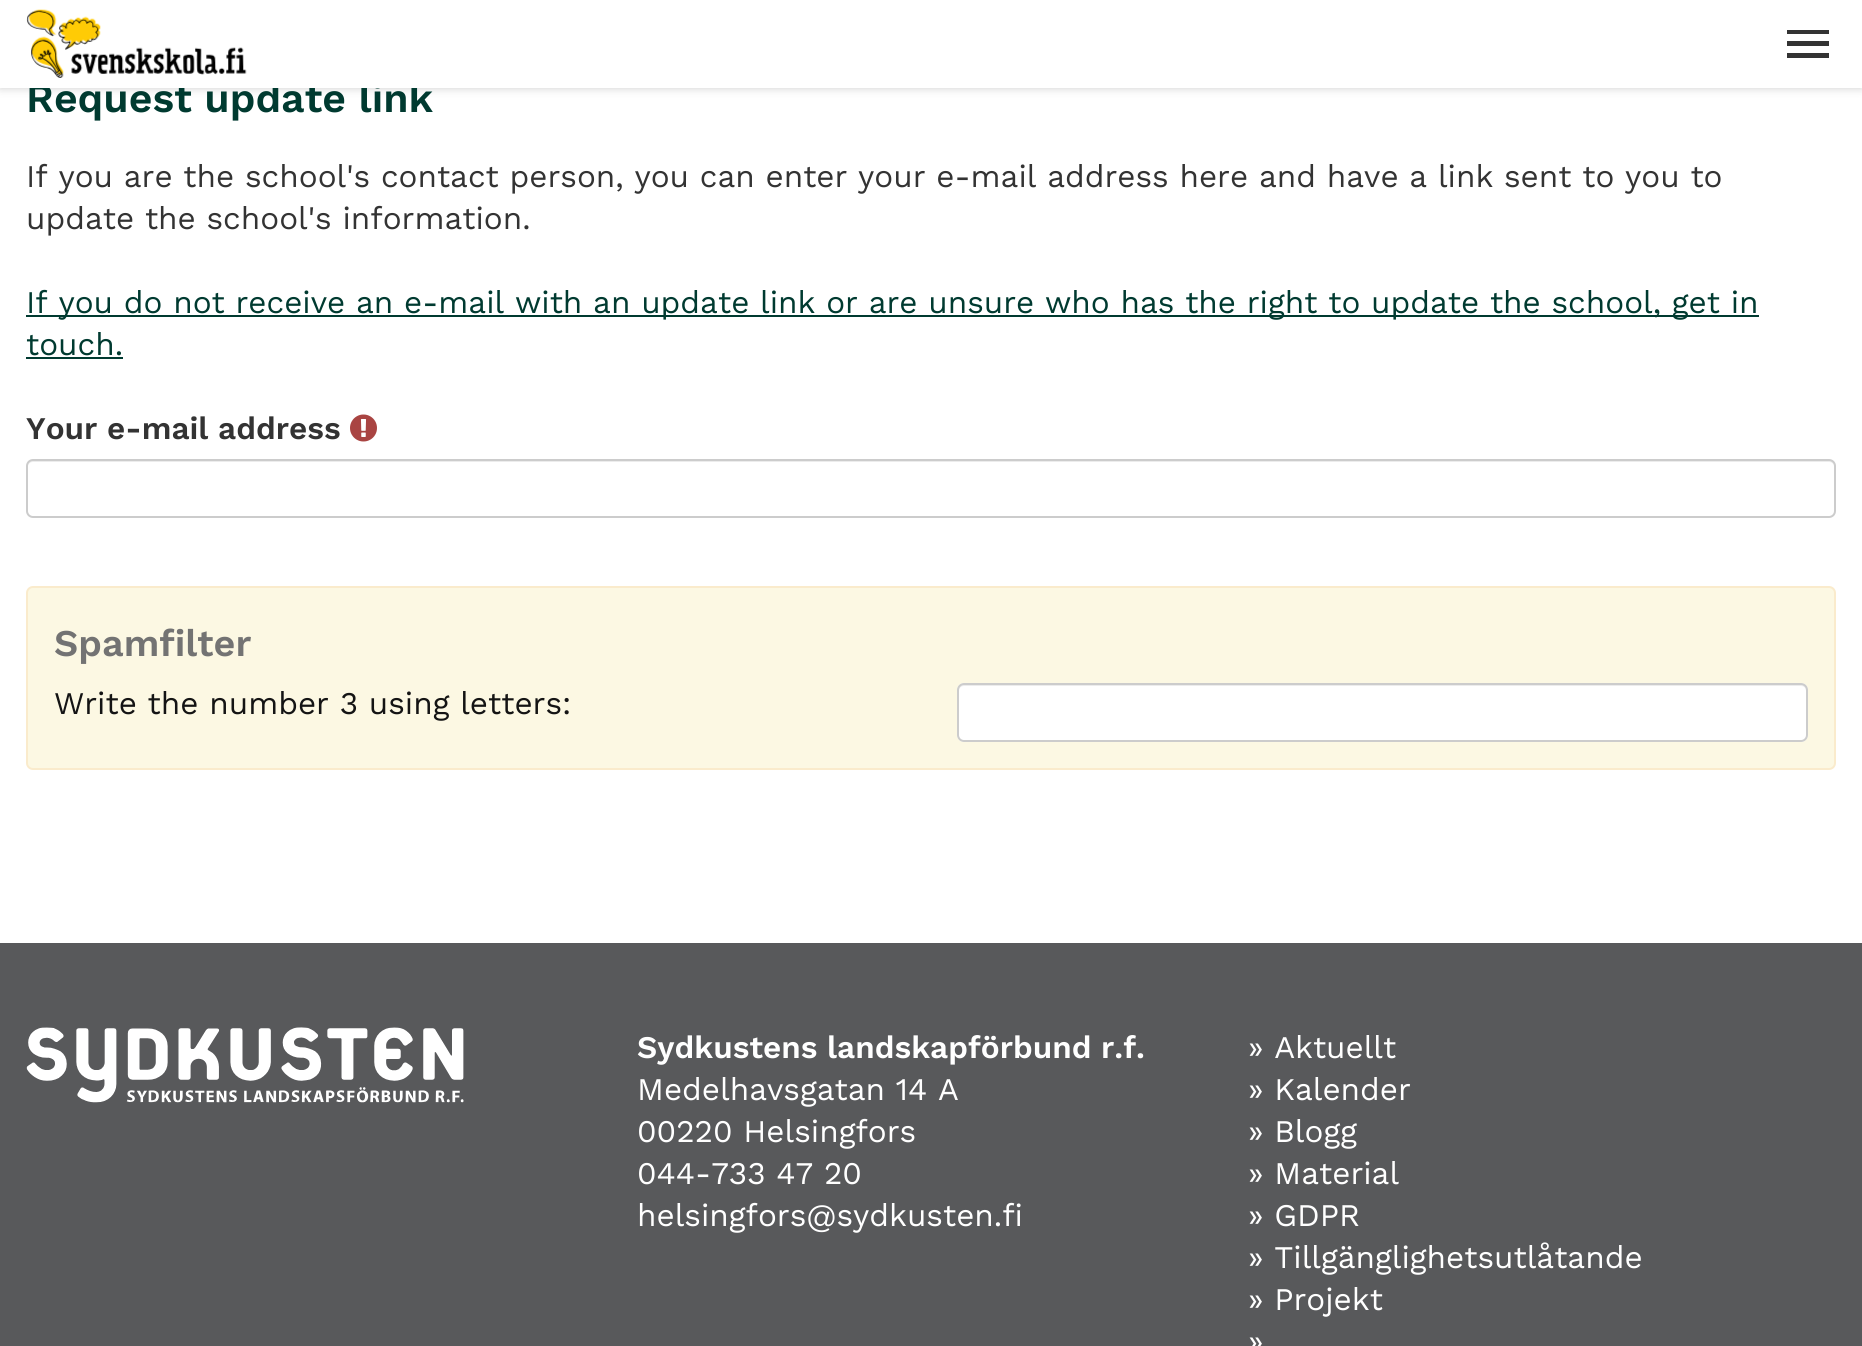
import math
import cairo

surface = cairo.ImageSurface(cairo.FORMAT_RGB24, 1862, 1346)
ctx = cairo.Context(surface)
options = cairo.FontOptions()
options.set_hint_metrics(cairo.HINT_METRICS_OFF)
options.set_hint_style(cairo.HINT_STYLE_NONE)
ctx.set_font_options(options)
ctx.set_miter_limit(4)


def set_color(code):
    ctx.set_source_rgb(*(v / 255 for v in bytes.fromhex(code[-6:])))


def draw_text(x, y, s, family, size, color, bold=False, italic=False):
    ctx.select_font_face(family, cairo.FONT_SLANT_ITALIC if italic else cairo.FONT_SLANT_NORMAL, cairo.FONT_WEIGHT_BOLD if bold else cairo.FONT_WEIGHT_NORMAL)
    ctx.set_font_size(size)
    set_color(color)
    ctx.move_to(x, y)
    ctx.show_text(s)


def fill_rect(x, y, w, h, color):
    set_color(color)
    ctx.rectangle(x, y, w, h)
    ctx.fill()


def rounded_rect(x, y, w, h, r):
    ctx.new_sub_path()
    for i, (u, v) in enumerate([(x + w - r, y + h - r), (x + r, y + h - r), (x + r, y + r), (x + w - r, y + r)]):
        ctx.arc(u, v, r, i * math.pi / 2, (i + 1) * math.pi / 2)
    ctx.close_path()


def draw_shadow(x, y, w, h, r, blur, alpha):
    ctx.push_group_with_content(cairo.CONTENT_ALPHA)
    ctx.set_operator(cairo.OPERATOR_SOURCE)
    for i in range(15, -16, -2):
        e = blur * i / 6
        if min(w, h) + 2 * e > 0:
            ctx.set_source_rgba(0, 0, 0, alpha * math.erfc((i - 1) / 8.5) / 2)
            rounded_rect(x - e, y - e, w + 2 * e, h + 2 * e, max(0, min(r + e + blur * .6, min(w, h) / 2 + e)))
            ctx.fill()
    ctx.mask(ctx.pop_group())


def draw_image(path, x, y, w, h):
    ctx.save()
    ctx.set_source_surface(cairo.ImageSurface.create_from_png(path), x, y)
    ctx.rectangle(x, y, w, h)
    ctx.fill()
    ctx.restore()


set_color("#ffffff")
ctx.paint()
set_color("#000000")
draw_shadow(0, 0, 1862, 88, 0, 4.5, 0.2)
draw_text(26, 112, "Request update link", "Work Sans SemiBold", 41, "#003a30")
fill_rect(0, 0, 1862, 88, "#ffffff")
draw_image("assets/img1.png", 26, 9, 221, 69)
set_color("#333333")
ctx.new_path()
ctx.move_to(1787, 30)
ctx.line_to(1829, 30)
ctx.line_to(1829, 34)
ctx.line_to(1787, 34)
ctx.close_path()
ctx.move_to(1787, 46)
ctx.line_to(1787, 41)
ctx.line_to(1829, 41)
ctx.line_to(1829, 46)
ctx.close_path()
ctx.move_to(1787, 58)
ctx.line_to(1787, 53)
ctx.line_to(1829, 53)
ctx.line_to(1829, 58)
ctx.close_path()
ctx.fill()
draw_text(26, 187, "If you are the school's contact person, you can enter your e-mail address here and have a link sent to you to", "Work Sans", 31.5, "#333333")
draw_text(26, 229, "update the school's information.", "Work Sans", 31.5, "#333333")
fill_rect(26, 315, 1733, 2, "#003a30")
draw_text(26, 313, "If you do not receive an e-mail with an update link or are unsure who has the right to update the school, get in", "Work Sans", 31.5, "#003a30")
draw_text(26, 355, "touch.", "Work Sans", 31.5, "#003a30")
fill_rect(26, 357, 97, 2, "#003a30")
draw_text(26, 439, "Your e-mail address", "Work Sans SemiBold", 31.5, "#333333")
draw_image("assets/img2.png", 350, 414, 27, 28)
set_color("#ececec")
ctx.new_path()
ctx.move_to(33, 462)
ctx.line_to(1829, 462)
ctx.curve_to(1832, 462, 1834, 464, 1834, 467)
ctx.curve_to(1834, 464, 1833, 460, 1829, 460)
ctx.line_to(33, 460)
ctx.curve_to(29, 460, 28, 464, 28, 467)
ctx.curve_to(28, 464, 30, 462, 33, 462)
ctx.close_path()
ctx.fill()
rounded_rect(27, 460, 1808, 57, 6)
set_color("#cccccc")
ctx.stroke()
set_color("#fcf8e3")
rounded_rect(27, 587, 1808, 182, 6)
ctx.fill_preserve()
set_color("#faebcc")
ctx.stroke()
draw_text(54, 656, "Spamfilter", "Work Sans SemiBold", 37.75, "#737373")
draw_text(54, 714, "Write the number 3 using letters:", "Work Sans", 31.5, "#141414")
set_color("#ffffff")
rounded_rect(957, 683, 851, 59, 7)
ctx.fill()
set_color("#ececec")
ctx.new_path()
ctx.move_to(964, 686)
ctx.line_to(1801, 686)
ctx.curve_to(1804, 686, 1806, 688, 1806, 691)
ctx.line_to(1806, 689)
ctx.curve_to(1806, 686, 1804, 684, 1801, 684)
ctx.line_to(964, 684)
ctx.curve_to(961, 684, 959, 686, 959, 689)
ctx.line_to(959, 691)
ctx.curve_to(959, 688, 961, 686, 964, 686)
ctx.close_path()
ctx.fill()
rounded_rect(958, 684, 849, 57, 6)
set_color("#cccccc")
ctx.stroke()
fill_rect(0, 943, 1862, 403, "#58595b")
draw_image("assets/img3.png", 26, 1027, 438, 76)
draw_text(637, 1058, "Sydkustens landskapförbund r.f.", "Work Sans SemiBold", 31.5, "#ffffff")
draw_text(637, 1100, "Medelhavsgatan 14 A", "Work Sans", 31.5, "#ffffff")
draw_text(637, 1142, "00220 Helsingfors", "Work Sans", 31.5, "#ffffff")
draw_text(637, 1184, "044-733 47 20", "Work Sans", 31.5, "#ffffff")
draw_text(637, 1226, "helsingfors@sydkusten.fi", "Work Sans", 31.5, "#ffffff")
draw_text(1248, 1058, "» Aktuellt", "Work Sans", 31.5, "#ffffff")
draw_text(1248, 1100, "» Kalender", "Work Sans", 31.5, "#ffffff")
draw_text(1248, 1142, "» Blogg", "Work Sans", 31.5, "#ffffff")
draw_text(1248, 1184, "» Material", "Work Sans", 31.5, "#ffffff")
draw_text(1248, 1226, "» GDPR", "Work Sans", 31.5, "#ffffff")
draw_text(1248, 1268, "» Tillgänglighetsutlåtande", "Work Sans", 31.5, "#ffffff")
draw_text(1248, 1310, "» Projekt", "Work Sans", 31.5, "#ffffff")
draw_text(1248, 1352, "»", "Work Sans", 31.5, "#ffffff")
surface.write_to_png("output.png")
